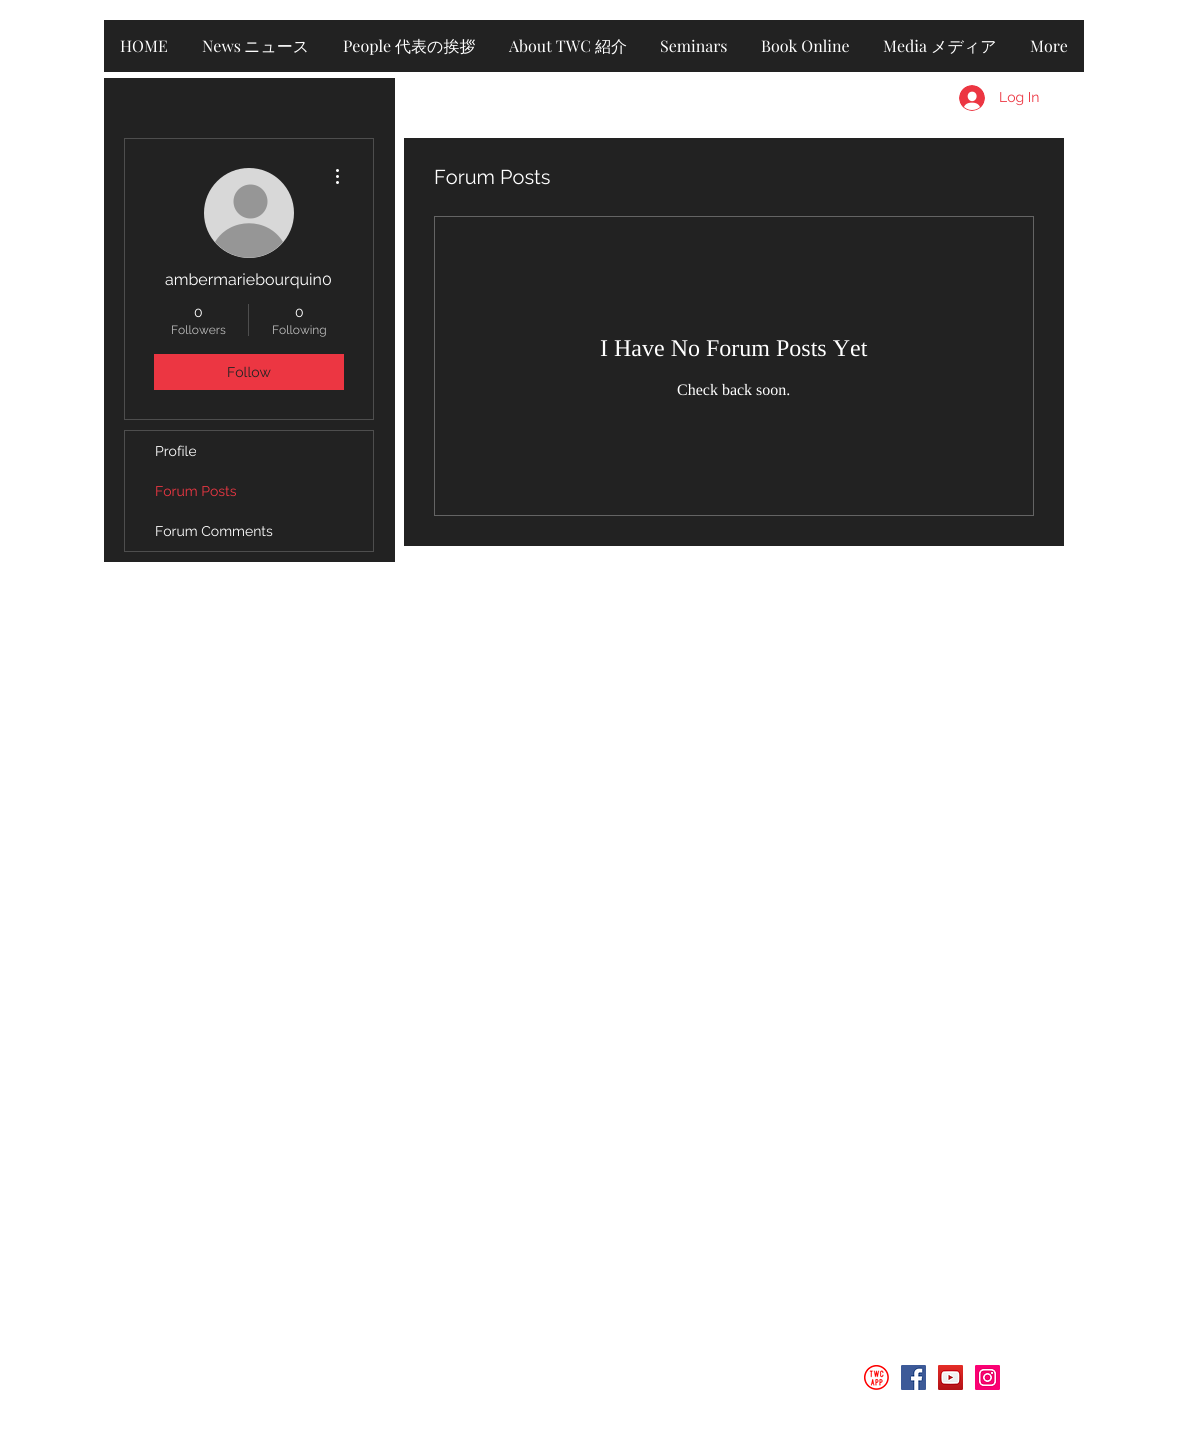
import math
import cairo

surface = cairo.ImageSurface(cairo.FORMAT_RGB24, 1187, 1446)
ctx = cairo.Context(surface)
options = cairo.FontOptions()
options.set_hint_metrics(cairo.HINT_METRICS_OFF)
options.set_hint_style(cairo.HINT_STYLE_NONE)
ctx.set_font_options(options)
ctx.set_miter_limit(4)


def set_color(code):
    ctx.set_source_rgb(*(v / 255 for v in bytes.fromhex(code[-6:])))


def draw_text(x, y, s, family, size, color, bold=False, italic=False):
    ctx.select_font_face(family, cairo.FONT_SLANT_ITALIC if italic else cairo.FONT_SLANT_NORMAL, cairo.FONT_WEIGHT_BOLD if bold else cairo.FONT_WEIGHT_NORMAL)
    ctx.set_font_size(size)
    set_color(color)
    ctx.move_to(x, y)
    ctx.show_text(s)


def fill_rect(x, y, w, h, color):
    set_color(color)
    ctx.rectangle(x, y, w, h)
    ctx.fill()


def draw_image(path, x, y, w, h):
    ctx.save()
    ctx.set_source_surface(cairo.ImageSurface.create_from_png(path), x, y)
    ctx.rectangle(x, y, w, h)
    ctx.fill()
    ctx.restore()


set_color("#ffffff")
ctx.paint()
fill_rect(104, 20, 980, 52, "#222222")
draw_text(120, 52, "HOME", "Playfair Display", 16, "#ffffff")
draw_text(202, 52, "News", "Playfair Display", 16, "#ffffff")
draw_text(244, 52, "ニュース", "WenQuanYi Zen Hei Medium", 16, "#ffffff")
draw_text(343, 52, "People", "Playfair Display", 16, "#ffffff")
draw_text(395, 52, "代表の挨拶", "WenQuanYi Zen Hei Medium", 16, "#ffffff")
draw_text(509, 52, "About TWC", "Playfair Display", 16, "#ffffff")
draw_text(595, 52, "紹介", "WenQuanYi Zen Hei Medium", 16, "#ffffff")
draw_text(660, 52, "Seminars", "Playfair Display", 16, "#ffffff")
draw_text(761, 52, "Book Online", "Playfair Display", 16, "#ffffff")
draw_text(883, 52, "Media", "Playfair Display", 16, "#ffffff")
draw_text(931, 52, "メディア", "WenQuanYi Zen Hei Medium", 16, "#ffffff")
draw_text(1030, 52, "More", "Playfair Display", 16, "#ffffff")
fill_rect(104, 78, 291, 484, "#222222")
ctx.rectangle(124.5, 138.5, 249, 281)
set_color("#4e4e4e")
ctx.set_line_width(1)
ctx.stroke()
set_color("#d8d8d8")
ctx.arc(249, 213, 45, 0, 2 * math.pi)
ctx.fill()
set_color("#969696")
ctx.arc(250.5, 201.5, 17, 0, 2 * math.pi)
ctx.fill()
ctx.new_path()
ctx.move_to(283, 242)
ctx.curve_to(265, 263, 233, 263, 215, 242)
ctx.curve_to(230, 217, 268, 217, 283, 242)
ctx.close_path()
ctx.fill()
draw_image("assets/img1.png", 336, 169, 3, 15)
draw_text(165, 285, "ambermariebourquin0", "Raleway", 16, "#ffffff")
draw_text(194, 317, "0", "Raleway", 14, "#ffffff")
draw_text(171, 334, "Followers", "Raleway", 12, "#bdbdbd")
fill_rect(248, 304, 1, 32, "#4e4e4e")
draw_text(295, 317, "0", "Raleway", 14, "#ffffff")
draw_text(272, 334, "Following", "Raleway", 12, "#bdbdbd")
fill_rect(154, 354, 190, 36, "#ec3642")
draw_text(227, 377, "Follow", "Raleway", 14, "#222222")
ctx.rectangle(124.5, 430.5, 249, 121)
set_color("#4e4e4e")
ctx.stroke()
draw_text(155, 456, "Profile", "Raleway", 14, "#ffffff")
draw_text(155, 496, "Forum Posts", "Raleway", 14, "#ec3642")
draw_text(155, 536, "Forum Comments", "Raleway", 14, "#ffffff")
draw_image("assets/img2.png", 959, 85, 26, 26)
draw_text(999, 102, "Log In", "Raleway", 14, "#ec3642")
fill_rect(404, 138, 660, 408, "#222222")
draw_text(434, 184, "Forum Posts", "Raleway", 20, "#ffffff")
ctx.rectangle(434.5, 216.5, 599, 299)
set_color("#646464")
ctx.stroke()
draw_text(600, 356, "I Have No Forum Posts Yet", "Liberation Serif", 24, "#ffffff")
draw_text(677, 395, "Check back soon.", "Liberation Serif", 16, "#ffffff")
draw_image("assets/img3.png", 864, 1365, 25, 25)
draw_image("assets/img4.png", 901, 1365, 25, 25)
draw_image("assets/img5.png", 938, 1365, 25, 25)
draw_image("assets/img6.png", 975, 1365, 25, 25)
surface.write_to_png("output.png")
